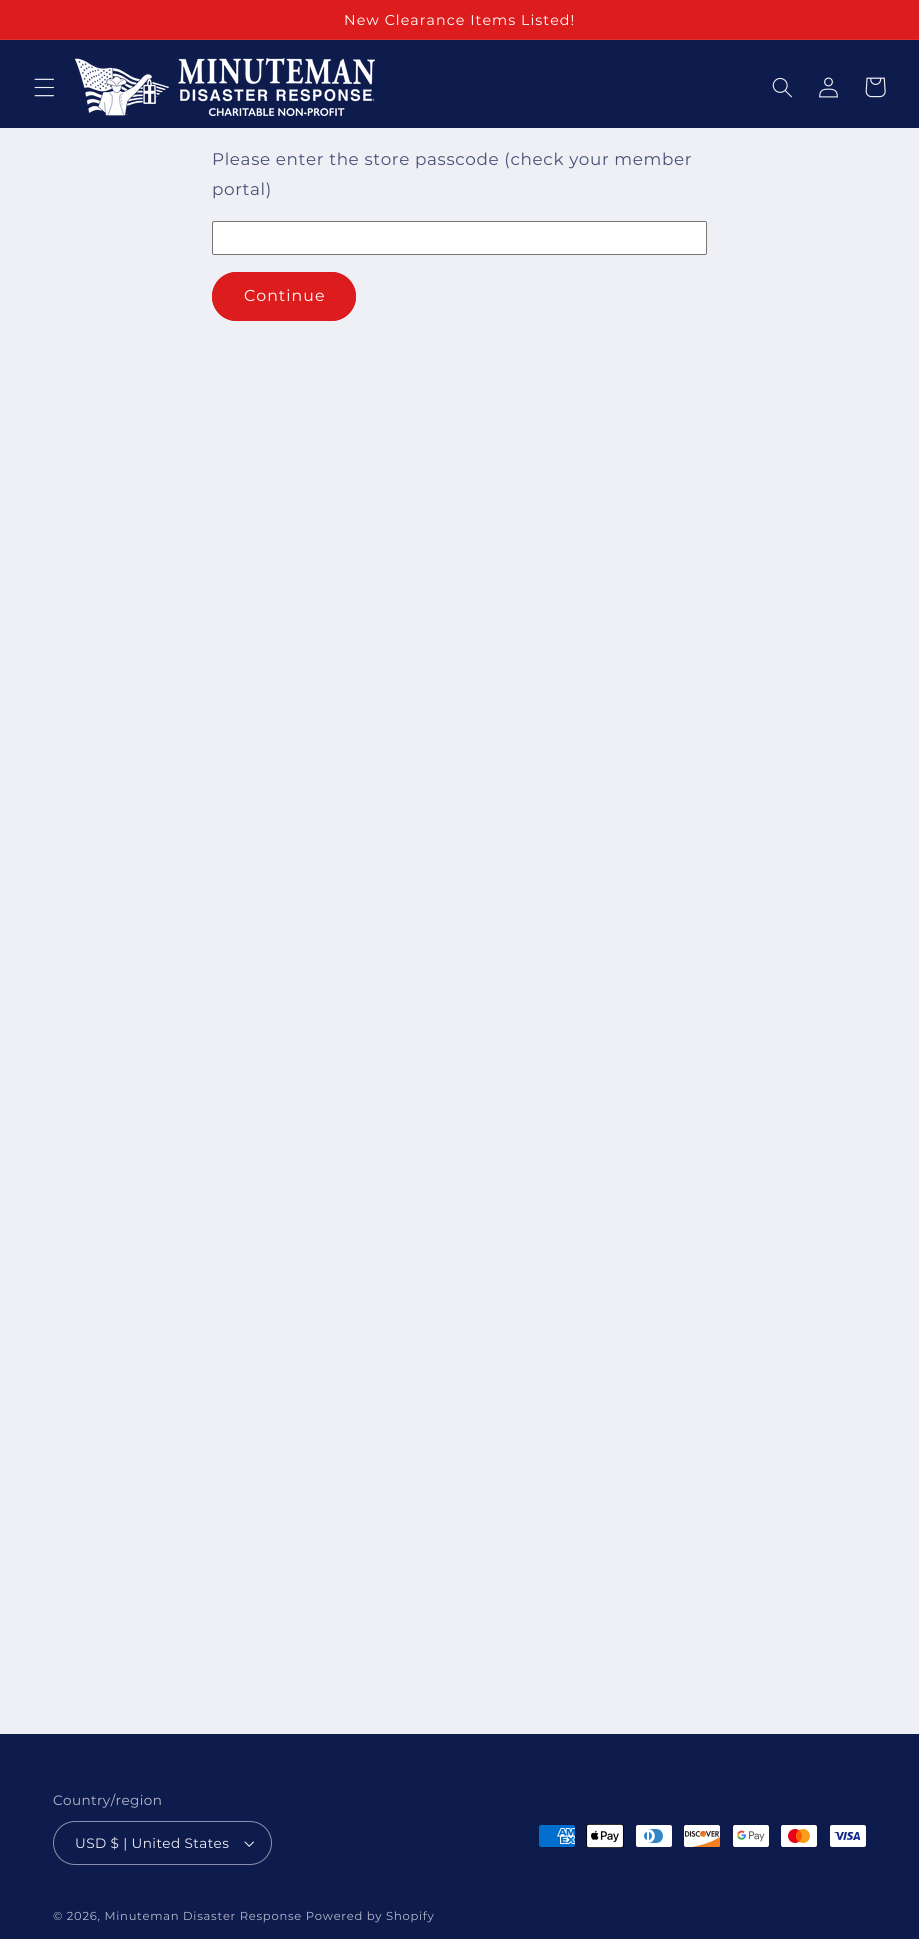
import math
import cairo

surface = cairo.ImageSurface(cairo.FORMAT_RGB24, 919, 1939)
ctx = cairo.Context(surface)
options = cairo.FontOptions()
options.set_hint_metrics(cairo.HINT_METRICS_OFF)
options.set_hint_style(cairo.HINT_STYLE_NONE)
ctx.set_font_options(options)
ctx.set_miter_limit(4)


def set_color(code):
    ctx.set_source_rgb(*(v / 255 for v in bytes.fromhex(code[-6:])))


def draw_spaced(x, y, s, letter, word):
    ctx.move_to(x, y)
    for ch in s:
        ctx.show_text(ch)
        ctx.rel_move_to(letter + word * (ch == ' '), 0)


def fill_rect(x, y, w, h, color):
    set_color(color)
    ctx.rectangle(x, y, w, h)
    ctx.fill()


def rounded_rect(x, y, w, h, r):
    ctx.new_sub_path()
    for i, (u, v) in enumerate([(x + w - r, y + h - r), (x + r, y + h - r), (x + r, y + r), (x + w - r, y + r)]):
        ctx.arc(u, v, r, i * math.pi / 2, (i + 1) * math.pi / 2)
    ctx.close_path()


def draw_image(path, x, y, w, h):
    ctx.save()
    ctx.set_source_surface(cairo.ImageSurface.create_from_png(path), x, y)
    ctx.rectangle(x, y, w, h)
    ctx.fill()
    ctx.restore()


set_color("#eff0f5")
ctx.paint()
fill_rect(0, 0, 919, 39, "#dd1d1d")
fill_rect(0, 39, 919, 1, "#e02f2f")
ctx.select_font_face("Montserrat")
ctx.set_font_size(14.25)
set_color("#ffffff")
draw_spaced(344, 25, "New Clearance Items Listed!", 1.05, 0)
fill_rect(0, 40, 919, 88, "#0e1b4d")
draw_image("assets/img1.png", 34, 78, 20, 19)
draw_image("assets/img2.png", 75, 58, 300, 58)
draw_image("assets/img3.png", 772, 77, 20, 21)
draw_image("assets/img4.png", 819, 77, 19, 21)
draw_image("assets/img5.png", 865, 77, 21, 21)
ctx.set_font_size(16.8)
set_color("#465077")
draw_spaced(212, 165, "Please enter the store passcode (check your member", 0.63, 0)
draw_spaced(212, 195, "portal)", 0.63, 0)
set_color("#ffffff")
rounded_rect(212.5, 221.5, 494, 33, 1.5)
ctx.fill_preserve()
set_color("#767676")
ctx.set_line_width(1)
ctx.stroke()
set_color("#dd1d1d")
rounded_rect(212, 272, 144, 49, 24.5)
ctx.fill()
rounded_rect(212.5, 272.5, 143, 48, 24)
ctx.stroke()
ctx.set_font_size(15.75)
set_color("#ffffff")
draw_spaced(244, 301, "Continue", 1.05, 0)
fill_rect(0, 1734, 919, 205, "#0e1b4d")
ctx.set_font_size(13.6)
set_color("#b7bbcb")
draw_spaced(53, 1805, "Country/region", 0.4, 0)
draw_image("assets/img6.png", 244, 1841, 10, 6)
rounded_rect(53.5, 1821.5, 218, 43, 21.5)
set_color("#8a90a9")
ctx.stroke()
set_color("#eff0f5")
draw_spaced(75, 1848, "USD $ | United States", 0.4, 0)
draw_image("assets/img7.png", 538, 1824, 38, 24)
draw_image("assets/img8.png", 586, 1824, 38, 24)
draw_image("assets/img9.png", 635, 1824, 38, 24)
draw_image("assets/img10.png", 683, 1824, 38, 24)
draw_image("assets/img11.png", 732, 1824, 38, 24)
draw_image("assets/img12.png", 780, 1824, 38, 24)
draw_image("assets/img13.png", 829, 1824, 38, 24)
ctx.set_font_size(11.55)
set_color("#b7bbcb")
draw_spaced(53, 1920, "© 2026, Minuteman Disaster Response Powered by Shopify", 0.73, 0)
surface.write_to_png("output.png")
